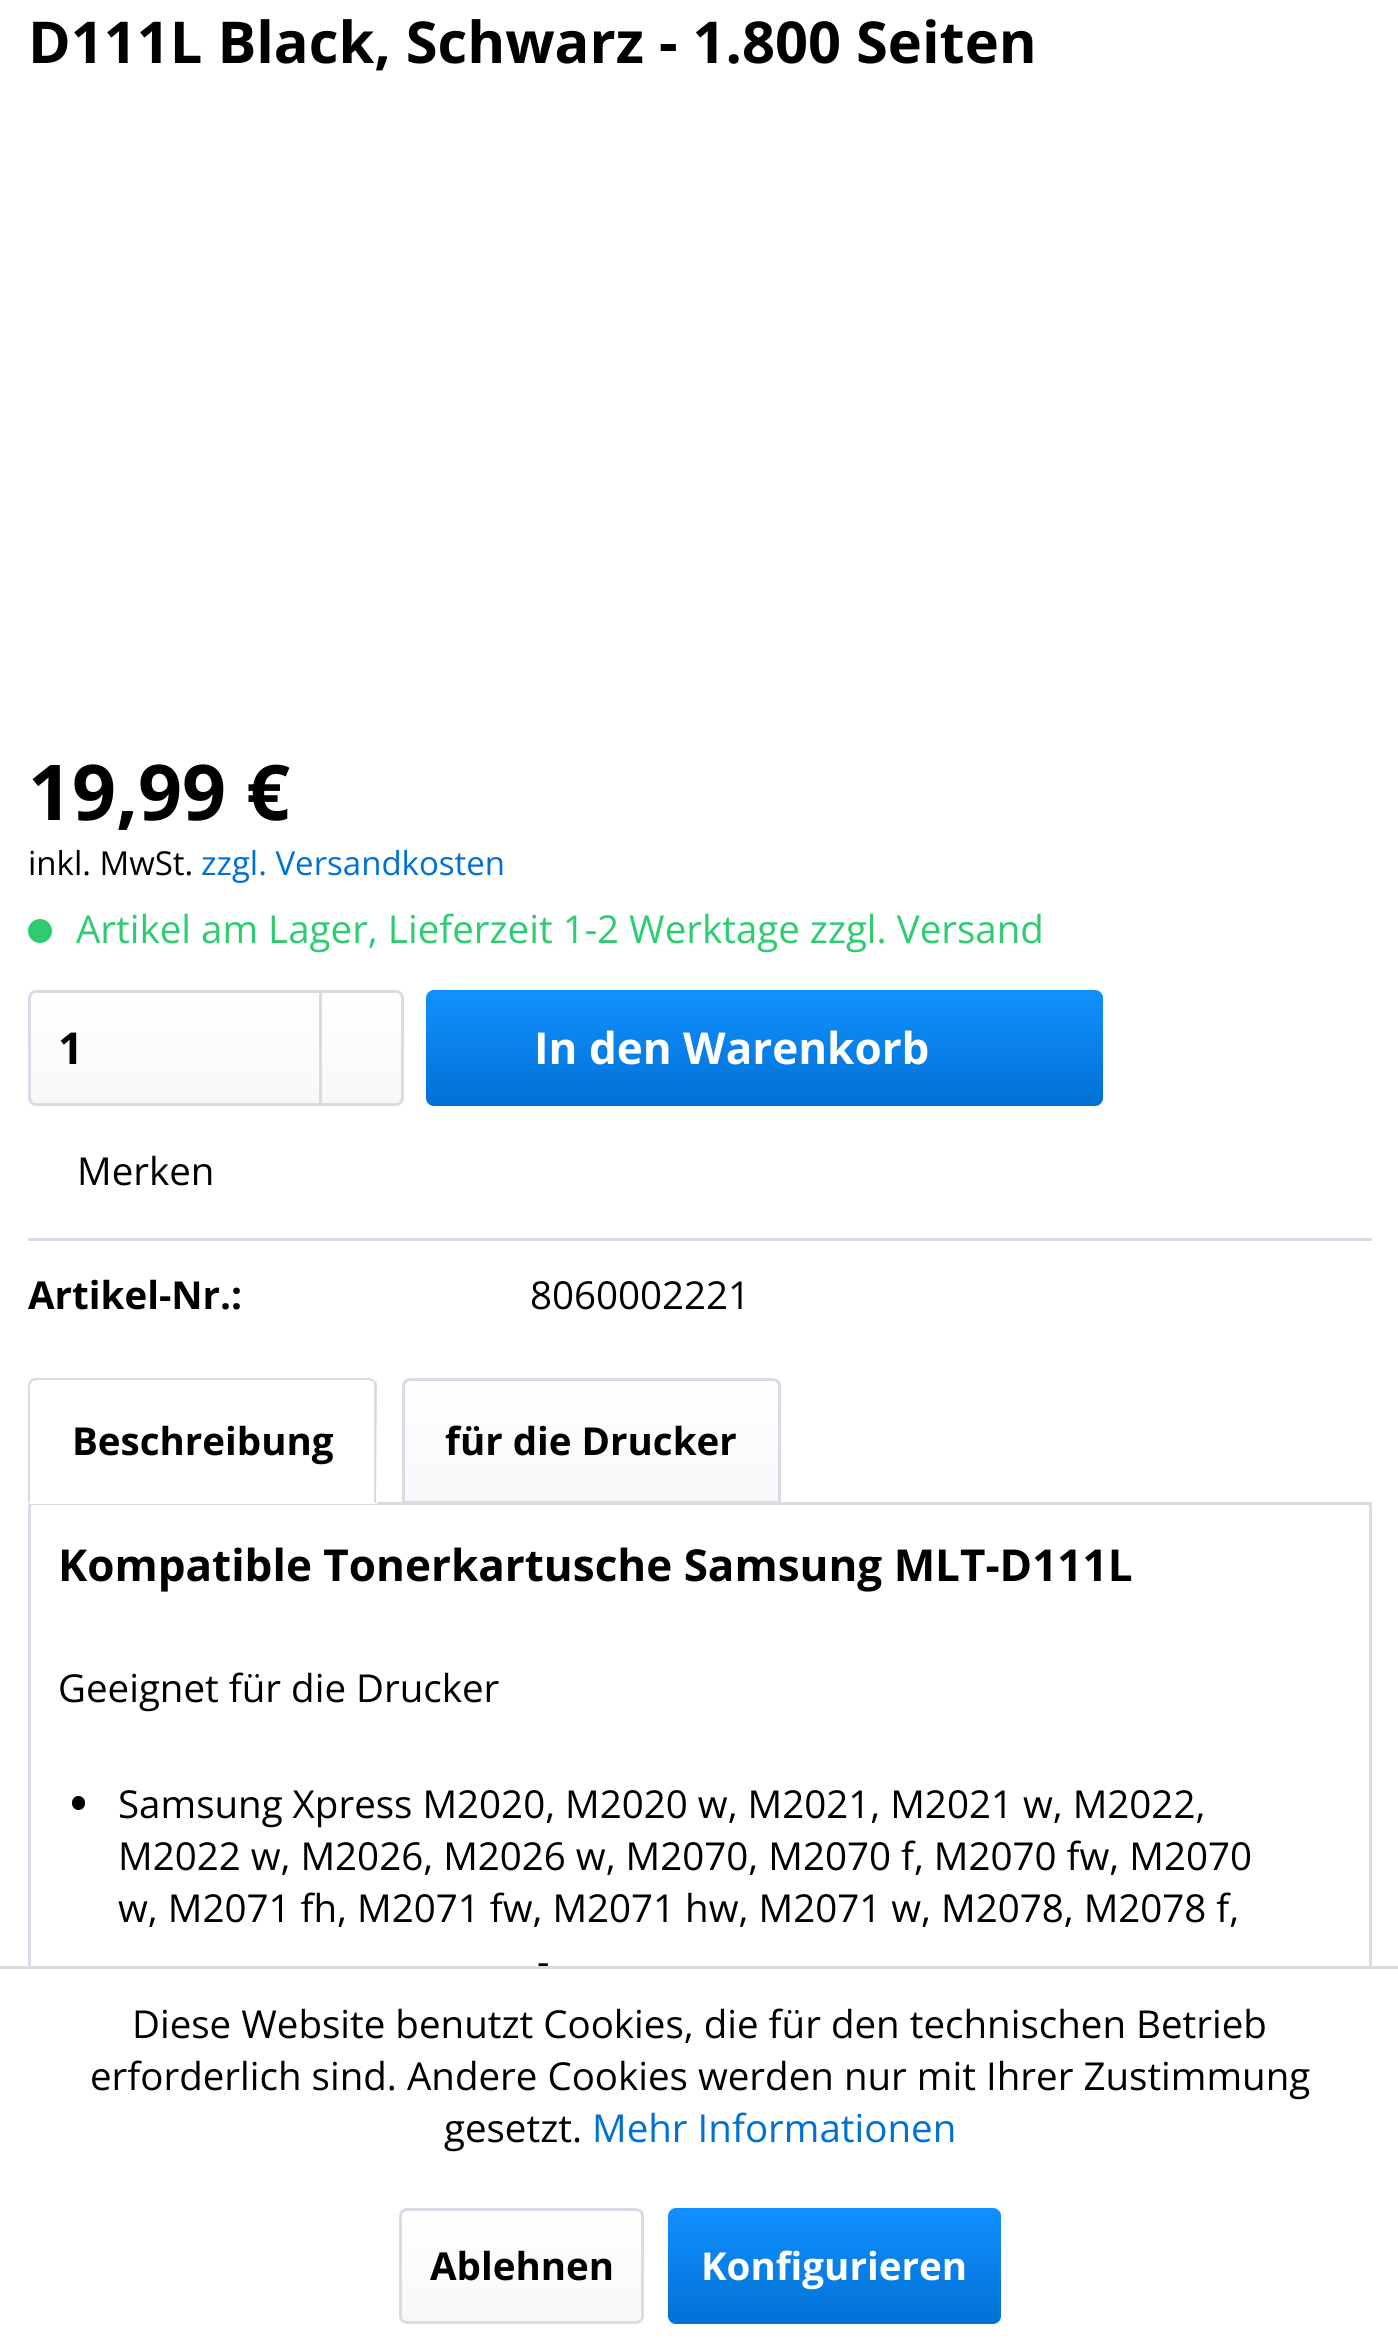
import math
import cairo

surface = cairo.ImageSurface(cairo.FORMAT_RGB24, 1398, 2350)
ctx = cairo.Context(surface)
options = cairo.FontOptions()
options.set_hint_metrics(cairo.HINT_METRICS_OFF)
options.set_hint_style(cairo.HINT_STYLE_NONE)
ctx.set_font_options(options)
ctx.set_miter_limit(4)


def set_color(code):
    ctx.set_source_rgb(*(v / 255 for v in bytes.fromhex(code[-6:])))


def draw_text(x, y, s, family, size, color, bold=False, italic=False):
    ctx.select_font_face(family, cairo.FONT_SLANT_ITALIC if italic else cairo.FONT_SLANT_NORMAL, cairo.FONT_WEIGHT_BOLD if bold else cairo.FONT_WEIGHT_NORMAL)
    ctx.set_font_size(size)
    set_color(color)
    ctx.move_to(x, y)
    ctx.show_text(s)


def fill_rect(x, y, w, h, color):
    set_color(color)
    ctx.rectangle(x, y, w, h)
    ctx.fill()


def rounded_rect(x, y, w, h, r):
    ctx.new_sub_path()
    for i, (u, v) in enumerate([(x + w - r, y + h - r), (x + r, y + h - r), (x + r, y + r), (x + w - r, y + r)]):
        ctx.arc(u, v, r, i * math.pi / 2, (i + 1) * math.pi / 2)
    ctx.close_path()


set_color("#ffffff")
ctx.paint()
draw_text(28, 63, "D111L Black, Schwarz - 1.800 Seiten", "Open Sans", 57.75, "#000000", bold=True)
draw_text(28, 820, "19,99 €", "Open Sans", 77, "#000000", bold=True)
draw_text(28, 875, "inkl. MwSt.", "Open Sans", 33, "#000000")
draw_text(201, 875, "zzgl. Versandkosten", "Open Sans", 33, "#0071d4")
set_color("#2ecc71")
ctx.new_path()
ctx.arc(40, 931, 12, 0, 2 * math.pi)
ctx.fill()
draw_text(76, 943, "Artikel am Lager, Lieferzeit 1-2 Werktage zzgl. Versand", "Open Sans", 38.5, "#2ecc71")
gradient = cairo.LinearGradient(216, 993, 216, 1103)
gradient.add_color_stop_rgba(0, 1, 1, 1, 1)
gradient.add_color_stop_rgba(1, 0.973, 0.973, 0.98, 1)
ctx.set_source(gradient)
rounded_rect(30, 993, 372, 110, 6)
ctx.fill()
rounded_rect(29.5, 991.5, 373, 113, 6.5)
set_color("#dadae5")
ctx.set_line_width(3)
ctx.stroke()
draw_text(58, 1064, "1", "Open Sans", 44, "#000000", bold=True)
fill_rect(319, 993, 3, 110, "#dadae5")
gradient = cairo.LinearGradient(765, 990, 765, 1106)
gradient.add_color_stop_rgba(0, 0.071, 0.565, 1, 1)
gradient.add_color_stop_rgba(1, 0, 0.443, 0.831, 1)
ctx.set_source(gradient)
rounded_rect(426, 990, 677, 116, 8)
ctx.fill()
draw_text(534, 1064, "In den Warenkorb", "Open Sans", 44, "#ffffff", bold=True)
fill_rect(28, 1238, 1344, 3, "#dadae5")
draw_text(77, 1185, "Merken", "Open Sans", 38.5, "#000000")
draw_text(28, 1309, "Artikel-Nr.:", "Open Sans", 38.5, "#000000", bold=True)
draw_text(530, 1309, "8060002221", "Open Sans", 38.5, "#000000")
ctx.rectangle(29.5, 1503.5, 1341, 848)
set_color("#dadae5")
ctx.stroke()
set_color("#ffffff")
ctx.new_path()
ctx.move_to(36, 1378)
ctx.line_to(369, 1378)
ctx.curve_to(373.5, 1378, 377, 1381.5, 377, 1386)
ctx.line_to(377, 1504)
ctx.line_to(28, 1504)
ctx.line_to(28, 1386)
ctx.curve_to(28, 1381.5, 31.5, 1378, 36, 1378)
ctx.close_path()
ctx.fill()
set_color("#dadae5")
ctx.new_path()
ctx.move_to(36, 1378)
ctx.curve_to(33, 1378, 31, 1379, 30, 1380)
ctx.line_to(32, 1382)
ctx.curve_to(33, 1381, 34, 1380, 36, 1380)
ctx.line_to(368, 1380)
ctx.curve_to(370, 1380, 372, 1381, 373, 1382)
ctx.line_to(374, 1380)
ctx.curve_to(373, 1379, 370, 1378, 368, 1378)
ctx.close_path()
ctx.fill()
ctx.new_path()
ctx.move_to(374, 1380)
ctx.curve_to(376, 1381, 376, 1382, 377, 1384)
ctx.line_to(376, 1504)
ctx.line_to(374, 1502)
ctx.line_to(374, 1385)
ctx.line_to(373, 1382)
ctx.close_path()
ctx.fill()
set_color("#ffffff")
ctx.new_path()
ctx.move_to(376, 1504)
ctx.line_to(28, 1504)
ctx.line_to(30, 1502)
ctx.line_to(374, 1502)
ctx.close_path()
ctx.fill()
set_color("#dadae5")
ctx.new_path()
ctx.move_to(30, 1380)
ctx.curve_to(29, 1382, 28, 1384, 28, 1386)
ctx.line_to(28, 1504)
ctx.line_to(30, 1502)
ctx.line_to(30, 1385)
ctx.line_to(32, 1382)
ctx.close_path()
ctx.fill()
draw_text(72, 1455, "Beschreibung", "Open Sans", 38.5, "#000000", bold=True)
gradient = cairo.LinearGradient(591, 1381, 591, 1502)
gradient.add_color_stop_rgba(0, 1, 1, 1, 1)
gradient.add_color_stop_rgba(1, 0.973, 0.973, 0.98, 1)
ctx.set_source(gradient)
ctx.new_path()
ctx.move_to(410, 1381)
ctx.line_to(772, 1381)
ctx.curve_to(775.5, 1381, 778, 1383.5, 778, 1387)
ctx.line_to(778, 1502)
ctx.line_to(404, 1502)
ctx.line_to(404, 1387)
ctx.curve_to(404, 1383.5, 406.5, 1381, 410, 1381)
ctx.close_path()
ctx.fill()
ctx.new_path()
ctx.move_to(410, 1379.5)
ctx.line_to(773, 1379.5)
ctx.curve_to(776.5, 1379.5, 779.5, 1382.5, 779.5, 1386)
ctx.line_to(779.5, 1502.5)
ctx.line_to(403.5, 1502.5)
ctx.line_to(403.5, 1386)
ctx.curve_to(403.5, 1382.5, 406.5, 1379.5, 410, 1379.5)
ctx.close_path()
set_color("#dadae5")
ctx.stroke()
draw_text(445, 1455, "für die Drucker", "Open Sans", 38.5, "#000000", bold=True)
draw_text(58, 1581, "Kompatible Tonerkartusche Samsung MLT-D111L", "Open Sans", 44, "#000000", bold=True)
draw_text(58, 1702, "Geeignet für die Drucker", "Open Sans", 38.5, "#000000")
rounded_rect(72, 1796, 13, 14, 6.5)
ctx.fill()
draw_text(118, 1818, "Samsung Xpress M2020, M2020 w, M2021, M2021 w, M2022,", "Open Sans", 38.5, "#000000")
draw_text(118, 1870, "M2022 w, M2026, M2026 w, M2070, M2070 f, M2070 fw, M2070", "Open Sans", 38.5, "#000000")
draw_text(118, 1922, "w, M2071 fh, M2071 fw, M2071 hw, M2071 w, M2078, M2078 f,", "Open Sans", 38.5, "#000000")
draw_text(537, 1975, "-", "Open Sans", 38.5, "#000000")
fill_rect(28, 1969, 1344, 381, "#ffffff")
fill_rect(0, 1966, 1398, 3, "#dadae5")
draw_text(132, 2038, "Diese Website benutzt Cookies, die für den technischen Betrieb", "Open Sans", 38.5, "#000000")
draw_text(90, 2090, "erforderlich sind. Andere Cookies werden nur mit Ihrer Zustimmung", "Open Sans", 38.5, "#000000")
draw_text(444, 2142, "gesetzt.", "Open Sans", 38.5, "#000000")
draw_text(592, 2142, "Mehr Informationen", "Open Sans", 38.5, "#0071d4")
gradient = cairo.LinearGradient(521, 2211, 521, 2321)
gradient.add_color_stop_rgba(0, 1, 1, 1, 1)
gradient.add_color_stop_rgba(1, 0.973, 0.973, 0.98, 1)
ctx.set_source(gradient)
rounded_rect(402, 2211, 239, 110, 6)
ctx.fill()
rounded_rect(400.5, 2209.5, 242, 113, 6.5)
set_color("#dadae5")
ctx.stroke()
draw_text(430, 2280, "Ablehnen", "Open Sans", 38.5, "#000000", bold=True)
gradient = cairo.LinearGradient(835, 2208, 835, 2324)
gradient.add_color_stop_rgba(0, 0.071, 0.565, 1, 1)
gradient.add_color_stop_rgba(1, 0, 0.443, 0.831, 1)
ctx.set_source(gradient)
rounded_rect(668, 2208, 333, 116, 8)
ctx.fill()
draw_text(701, 2280, "Konfigurieren", "Open Sans", 38.5, "#ffffff", bold=True)
surface.write_to_png("output.png")
